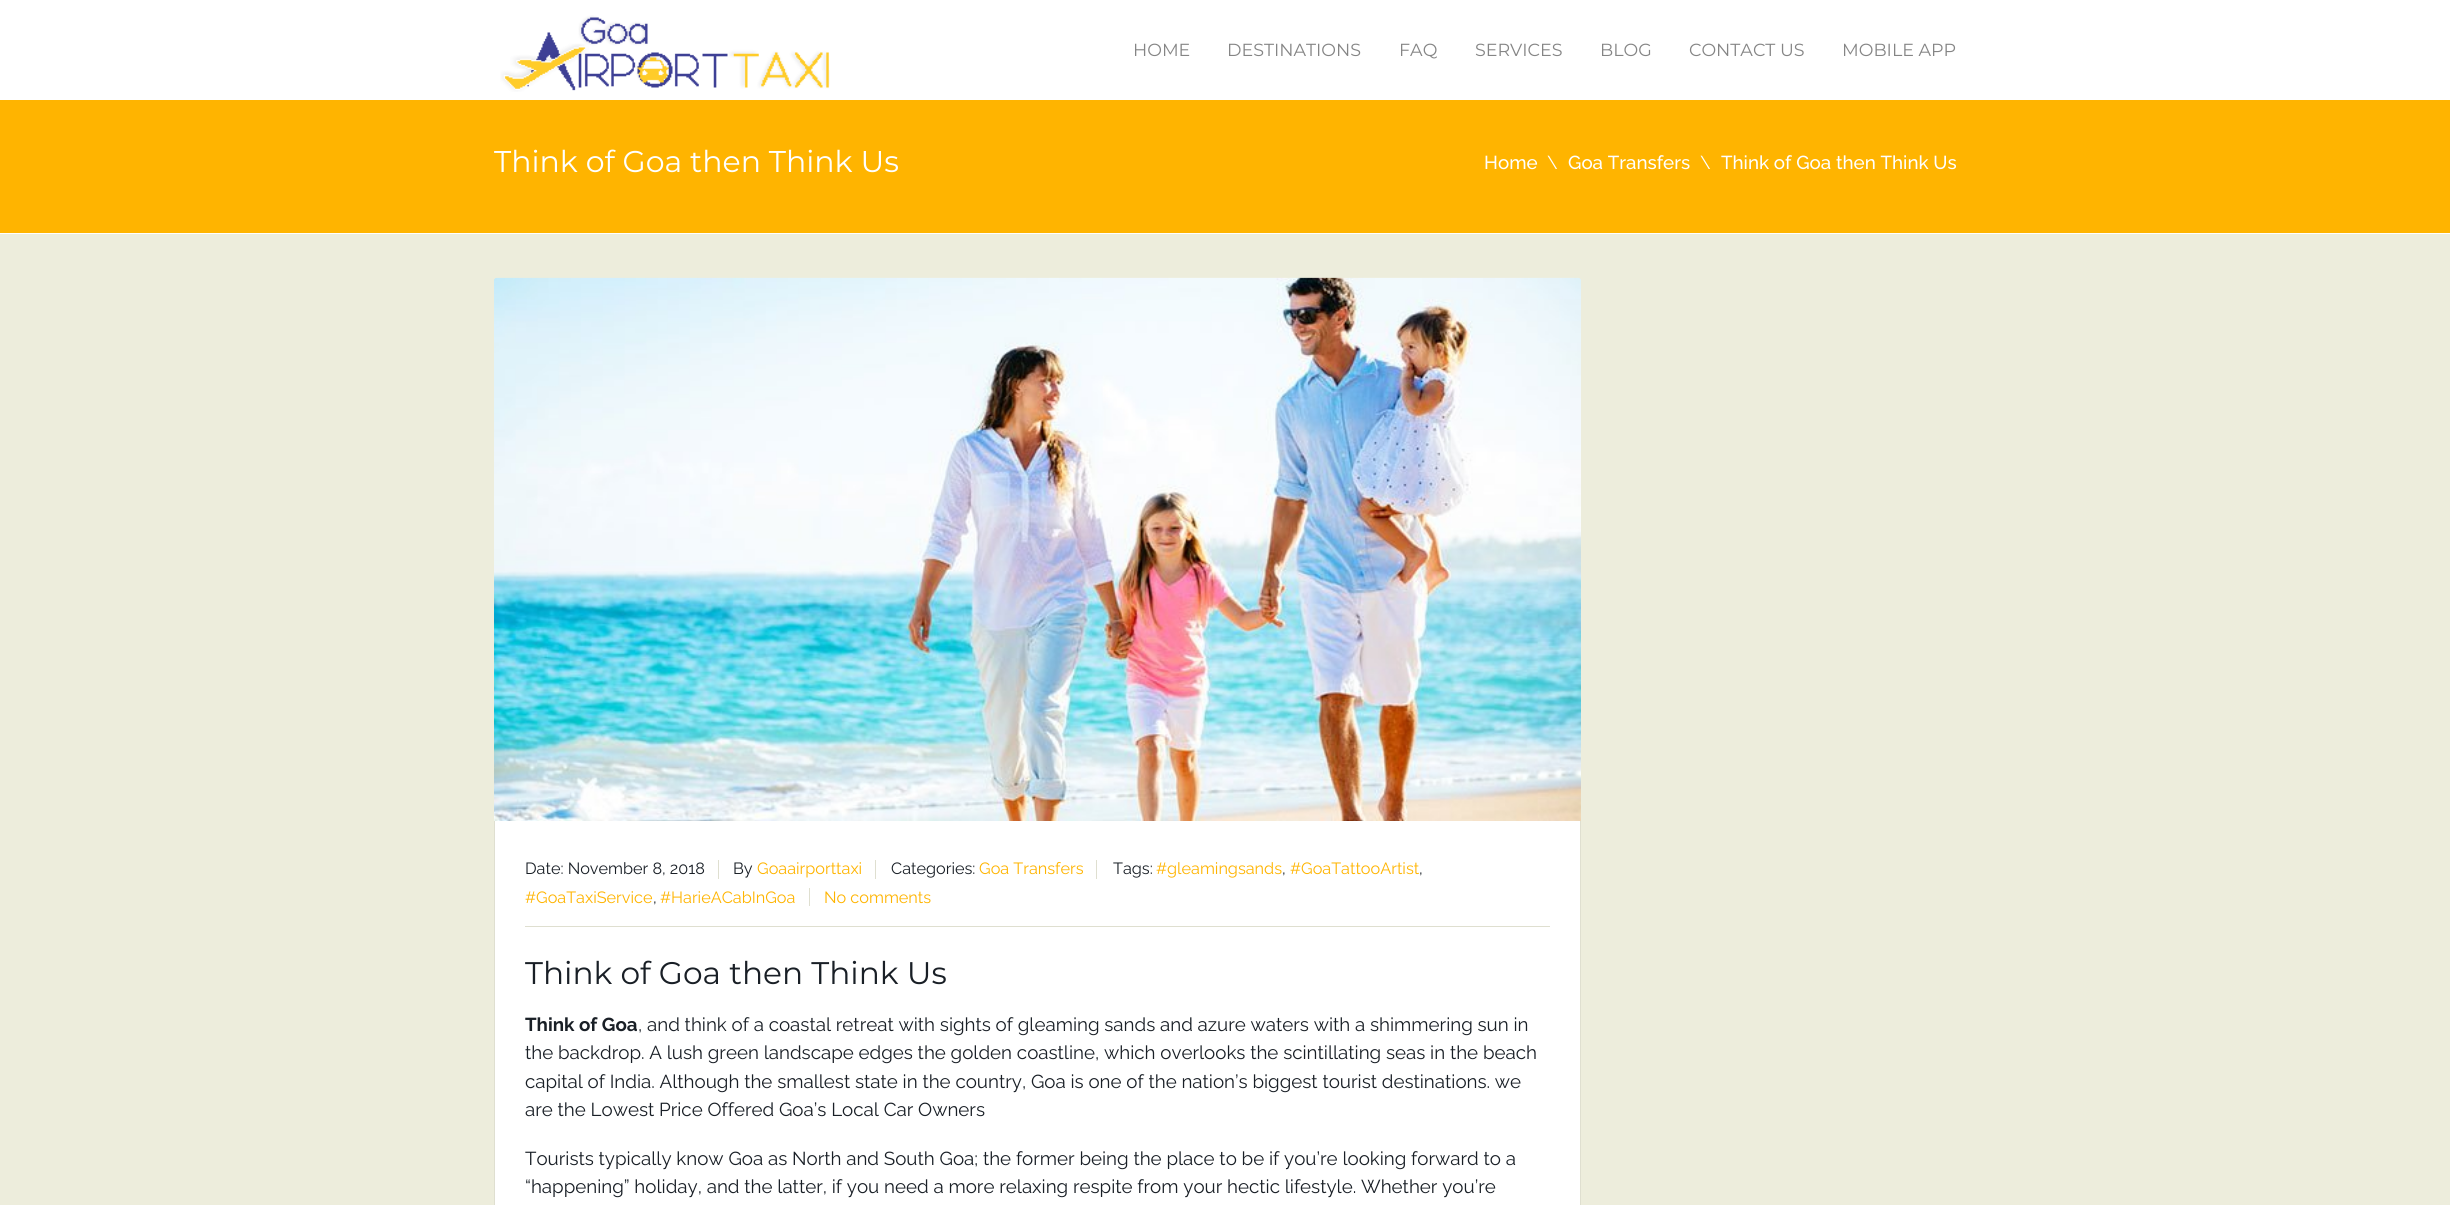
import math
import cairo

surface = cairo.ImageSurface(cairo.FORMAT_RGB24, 2450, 1205)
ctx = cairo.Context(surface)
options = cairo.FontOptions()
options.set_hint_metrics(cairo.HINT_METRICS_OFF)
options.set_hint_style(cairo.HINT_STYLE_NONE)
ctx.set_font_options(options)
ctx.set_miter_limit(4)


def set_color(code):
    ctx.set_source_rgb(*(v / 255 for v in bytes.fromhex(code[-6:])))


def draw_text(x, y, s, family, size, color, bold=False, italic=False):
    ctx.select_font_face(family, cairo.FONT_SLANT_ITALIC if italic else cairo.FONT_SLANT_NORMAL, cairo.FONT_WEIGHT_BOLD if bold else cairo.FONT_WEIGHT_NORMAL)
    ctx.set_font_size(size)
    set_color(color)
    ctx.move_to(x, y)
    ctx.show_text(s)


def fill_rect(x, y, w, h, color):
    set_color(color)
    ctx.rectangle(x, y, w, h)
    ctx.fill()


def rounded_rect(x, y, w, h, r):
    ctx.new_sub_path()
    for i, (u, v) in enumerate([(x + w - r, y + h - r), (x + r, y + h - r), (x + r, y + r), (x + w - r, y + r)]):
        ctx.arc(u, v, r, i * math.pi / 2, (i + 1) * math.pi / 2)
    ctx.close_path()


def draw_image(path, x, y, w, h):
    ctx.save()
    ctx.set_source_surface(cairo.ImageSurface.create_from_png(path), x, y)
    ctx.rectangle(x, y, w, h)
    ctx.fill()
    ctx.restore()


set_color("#ededdc")
ctx.paint()
fill_rect(0, 0, 2450, 100, "#ffffff")
draw_image("assets/img1.png", 500, 15, 330, 77)
draw_text(1133, 56, "HOME", "Montserrat", 17.5, "#858585")
draw_text(1227, 56, "DESTINATIONS", "Montserrat", 17.5, "#858585")
draw_text(1399, 56, "FAQ", "Montserrat", 17.5, "#858585")
draw_text(1475, 56, "SERVICES", "Montserrat", 17.5, "#858585")
draw_text(1600, 56, "BLOG", "Montserrat", 17.5, "#858585")
draw_text(1689, 56, "CONTACT US", "Montserrat", 17.5, "#858585")
draw_text(1842, 56, "MOBILE APP", "Montserrat", 17.5, "#858585")
fill_rect(0, 100, 2450, 133, "#ffb400")
fill_rect(0, 233, 2450, 1, "#ffffff")
draw_text(494, 172, "Think of Goa then Think Us", "Montserrat", 30, "#ffffff")
draw_text(1484, 169, "Home", "Raleway Medium", 18.75, "#ffffff")
draw_text(1547, 169, "\\", "Raleway", 18.75, "#ffffff")
draw_text(1568, 169, "Goa Transfers", "Raleway Medium", 18.75, "#ffffff")
draw_text(1700, 169, "\\", "Raleway", 18.75, "#ffffff")
draw_text(1721, 169, "Think of Goa then Think Us", "Raleway Medium", 18.75, "#ffffff")
rounded_rect(494.5, 278.5, 1086, 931, 3.5)
ctx.fill_preserve()
set_color("#dfdfd0")
ctx.set_line_width(1)
ctx.stroke()
draw_image("assets/img2.png", 494, 277, 1087, 544)
fill_rect(525, 926, 1025, 1, "#dfdfd0")
draw_text(525, 874, "Date: November 8, 2018", "Raleway", 16.25, "#191f26")
fill_rect(718, 860, 1, 19, "#dfdfd0")
draw_text(733, 874, "By", "Raleway", 16.25, "#191f26")
draw_text(757, 874, "Goaairporttaxi", "Raleway", 16.25, "#ffb400")
fill_rect(875, 860, 1, 19, "#dfdfd0")
draw_text(891, 874, "Categories:", "Raleway", 16.25, "#191f26")
draw_text(979, 874, "Goa Transfers", "Raleway", 16.25, "#ffb400")
fill_rect(1096, 860, 1, 19, "#dfdfd0")
draw_text(1113, 874, "Tags:", "Raleway", 16.25, "#191f26")
draw_text(1156, 874, "#gleamingsands", "Raleway", 16.25, "#ffb400")
draw_text(1282, 874, ",", "Raleway", 16.25, "#191f26")
draw_text(1290, 874, "#GoaTattooArtist", "Raleway", 16.25, "#ffb400")
draw_text(1419, 874, ",", "Raleway", 16.25, "#191f26")
draw_text(525, 903, "#GoaTaxiService", "Raleway", 16.25, "#ffb400")
draw_text(653, 903, ",", "Raleway", 16.25, "#191f26")
draw_text(660, 903, "#HarieACabInGoa", "Raleway", 16.25, "#ffb400")
fill_rect(809, 888, 1, 18, "#dfdfd0")
draw_text(824, 903, "No comments", "Raleway", 16.25, "#ffb400")
draw_text(525, 984, "Think of Goa then Think Us", "Montserrat", 31.25, "#191f26")
draw_text(525, 1031, "Think of Goa", "Raleway", 18.75, "#191f26", bold=True)
draw_text(638, 1031, ", and think of a coastal retreat with sights of gleaming sands and azure waters with a shimmering sun in", "Raleway", 18.75, "#191f26")
draw_text(525, 1059, "the backdrop. A lush green landscape edges the golden coastline, which overlooks the scintillating seas in the beach", "Raleway", 18.75, "#191f26")
draw_text(525, 1088, "capital of India. Although the smallest state in the country, Goa is one of the nation’s biggest tourist destinations. we", "Raleway", 18.75, "#191f26")
draw_text(525, 1116, "are the Lowest Price Offered Goa’s Local Car Owners", "Raleway", 18.75, "#191f26")
draw_text(525, 1165, "Tourists typically know Goa as North and South Goa; the former being the place to be if you’re looking forward to a", "Raleway", 18.75, "#191f26")
draw_text(525, 1193, "“happening” holiday, and the latter, if you need a more relaxing respite from your hectic lifestyle. Whether you’re", "Raleway", 18.75, "#191f26")
surface.write_to_png("output.png")
